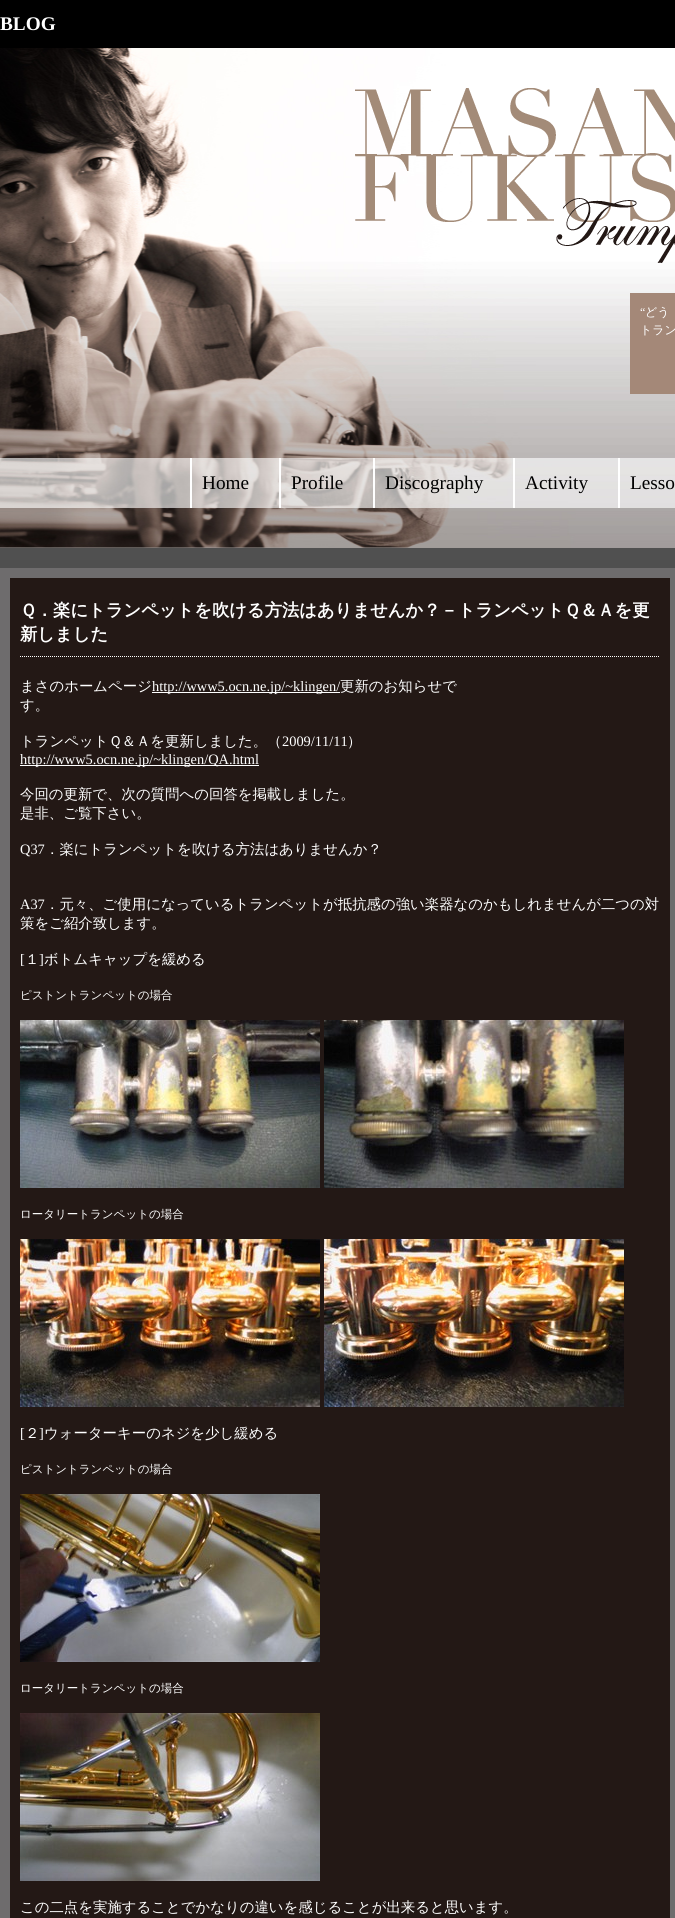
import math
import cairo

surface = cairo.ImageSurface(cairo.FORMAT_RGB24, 675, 1918)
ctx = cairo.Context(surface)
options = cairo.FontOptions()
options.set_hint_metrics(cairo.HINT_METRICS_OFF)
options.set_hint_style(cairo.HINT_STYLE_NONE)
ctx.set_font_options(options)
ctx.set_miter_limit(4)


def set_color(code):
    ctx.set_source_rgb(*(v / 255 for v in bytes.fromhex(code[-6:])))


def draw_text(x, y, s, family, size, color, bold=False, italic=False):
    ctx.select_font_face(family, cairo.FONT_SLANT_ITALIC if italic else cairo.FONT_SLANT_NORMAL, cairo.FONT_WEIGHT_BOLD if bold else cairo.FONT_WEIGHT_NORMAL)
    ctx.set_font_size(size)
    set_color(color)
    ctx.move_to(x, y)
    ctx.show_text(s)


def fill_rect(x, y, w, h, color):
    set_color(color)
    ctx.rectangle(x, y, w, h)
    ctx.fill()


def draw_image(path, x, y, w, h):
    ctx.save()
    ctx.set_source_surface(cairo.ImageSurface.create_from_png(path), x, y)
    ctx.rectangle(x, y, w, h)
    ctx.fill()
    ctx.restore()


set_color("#000000")
ctx.paint()
draw_text(0, 30, "BLOG", "Liberation Serif", 19.25, "#ffffff", bold=True)
draw_image("assets/img1.png", 0, 48, 675, 500)
draw_image("assets/img2.png", 355, 88, 320, 175)
fill_rect(630, 293, 45, 101, "#a48878")
draw_text(640, 316, "“", "Liberation Serif", 12, "#ffffff")
draw_text(645, 316, "どう", "WenQuanYi Zen Hei Medium", 12, "#ffffff")
draw_text(640, 334, "トラン", "WenQuanYi Zen Hei Medium", 12, "#ffffff")
fill_rect(190, 458, 2, 50, "#ffffff")
draw_text(202, 489, "Home", "Liberation Serif", 19.25, "#000000")
fill_rect(279, 458, 2, 50, "#ffffff")
draw_text(291, 489, "Profile", "Liberation Serif", 19.25, "#000000")
fill_rect(373, 458, 2, 50, "#ffffff")
draw_text(385, 489, "Discography", "Liberation Serif", 19.25, "#000000")
fill_rect(513, 458, 2, 50, "#ffffff")
draw_text(525, 489, "Activity", "Liberation Serif", 19.25, "#000000")
fill_rect(618, 458, 2, 50, "#ffffff")
draw_text(630, 489, "Lesso", "Liberation Serif", 19.25, "#000000")
gradient = cairo.LinearGradient(337, 548, 338, 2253)
gradient.add_color_stop_rgba(0, 0.314, 0.314, 0.314, 1)
gradient.add_color_stop_rgba(1, 0, 0, 0, 1)
ctx.set_source(gradient)
ctx.rectangle(0, 548, 675, 20)
ctx.fill()
fill_rect(0, 568, 675, 1350, "#6e6c6d")
fill_rect(10, 578, 660, 1340, "#231815")
ctx.new_path()
ctx.move_to(20, 656.5)
ctx.line_to(660, 656.5)
set_color("#ffffff")
ctx.set_line_width(1)
ctx.set_dash([1, 1])
ctx.stroke()
draw_text(20, 616, "Ｑ．楽にトランペットを吹ける方法はありませんか？－トランペットＱ＆Ａを更", "WenQuanYi Zen Hei", 17.3, "#ffffff", bold=True)
draw_text(20, 640, "新しました", "WenQuanYi Zen Hei", 17.3, "#ffffff", bold=True)
draw_text(20, 691, "まさのホームページ", "WenQuanYi Zen Hei Medium", 14.4, "#ffffff")
fill_rect(152, 692, 188, 1, "#ffffff")
draw_text(152, 691, "http://www5.ocn.ne.jp/~klingen/", "Liberation Serif", 14.4, "#ffffff")
draw_text(340, 691, "更新のお知らせで", "WenQuanYi Zen Hei Medium", 14.4, "#ffffff")
draw_text(20, 710, "す。", "WenQuanYi Zen Hei Medium", 14.4, "#ffffff")
draw_text(20, 746, "トランペットＱ＆Ａを更新しました。（", "WenQuanYi Zen Hei Medium", 14.4, "#ffffff")
draw_text(282, 746, "2009/11/11", "Liberation Serif", 14.4, "#ffffff")
draw_text(347, 746, "）", "WenQuanYi Zen Hei Medium", 14.4, "#ffffff")
fill_rect(20, 765, 239, 1, "#ffffff")
draw_text(20, 764, "http://www5.ocn.ne.jp/~klingen/QA.html", "Liberation Serif", 14.4, "#ffffff")
draw_text(20, 799, "今回の更新で、次の質問への回答を掲載しました。", "WenQuanYi Zen Hei Medium", 14.4, "#ffffff")
draw_text(20, 818, "是非、ご覧下さい。", "WenQuanYi Zen Hei Medium", 14.4, "#ffffff")
draw_text(20, 854, "Q37", "Liberation Serif", 14.4, "#ffffff")
draw_text(45, 854, "．楽にトランペットを吹ける方法はありませんか？", "WenQuanYi Zen Hei Medium", 14.4, "#ffffff")
draw_text(20, 909, "A37", "Liberation Serif", 14.4, "#ffffff")
draw_text(45, 909, "．元々、ご使用になっているトランペットが抵抗感の強い楽器なのかもしれませんが二つの対", "WenQuanYi Zen Hei Medium", 14.4, "#ffffff")
draw_text(20, 928, "策をご紹介致します。", "WenQuanYi Zen Hei Medium", 14.4, "#ffffff")
draw_text(20, 964, "[", "Liberation Serif", 14.4, "#ffffff")
draw_text(25, 964, "１", "WenQuanYi Zen Hei Medium", 14.4, "#ffffff")
draw_text(39, 964, "]", "Liberation Serif", 14.4, "#ffffff")
draw_text(44, 964, "ボトムキャップを緩める", "WenQuanYi Zen Hei Medium", 14.4, "#ffffff")
draw_text(20, 999, "ピストントランペットの場合", "WenQuanYi Zen Hei Medium", 11.5, "#ffffff")
draw_image("assets/img3.png", 20, 1020, 300, 168)
draw_image("assets/img4.png", 324, 1020, 300, 168)
draw_text(20, 1218, "ロータリートランペットの場合", "WenQuanYi Zen Hei Medium", 11.5, "#ffffff")
draw_image("assets/img5.png", 20, 1239, 300, 168)
draw_image("assets/img6.png", 324, 1239, 300, 168)
draw_text(20, 1438, "[", "Liberation Serif", 14.4, "#ffffff")
draw_text(25, 1438, "２", "WenQuanYi Zen Hei Medium", 14.4, "#ffffff")
draw_text(39, 1438, "]", "Liberation Serif", 14.4, "#ffffff")
draw_text(44, 1438, "ウォーターキーのネジを少し緩める", "WenQuanYi Zen Hei Medium", 14.4, "#ffffff")
draw_text(20, 1473, "ピストントランペットの場合", "WenQuanYi Zen Hei Medium", 11.5, "#ffffff")
draw_image("assets/img7.png", 20, 1494, 300, 168)
draw_text(20, 1692, "ロータリートランペットの場合", "WenQuanYi Zen Hei Medium", 11.5, "#ffffff")
draw_image("assets/img8.png", 20, 1713, 300, 168)
draw_text(20, 1912, "この二点を実施することでかなりの違いを感じることが出来ると思います。", "WenQuanYi Zen Hei Medium", 14.4, "#ffffff")
surface.write_to_png("output.png")
